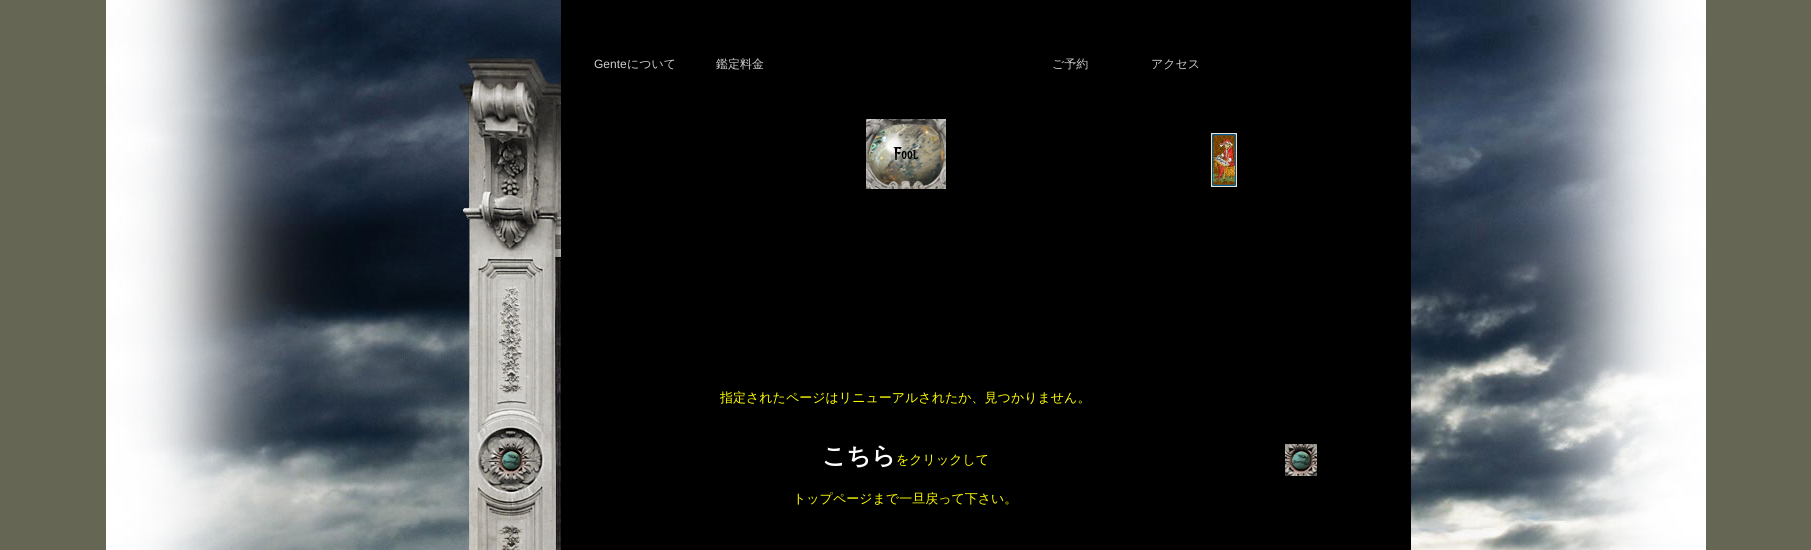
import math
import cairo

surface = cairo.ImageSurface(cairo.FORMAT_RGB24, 1811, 550)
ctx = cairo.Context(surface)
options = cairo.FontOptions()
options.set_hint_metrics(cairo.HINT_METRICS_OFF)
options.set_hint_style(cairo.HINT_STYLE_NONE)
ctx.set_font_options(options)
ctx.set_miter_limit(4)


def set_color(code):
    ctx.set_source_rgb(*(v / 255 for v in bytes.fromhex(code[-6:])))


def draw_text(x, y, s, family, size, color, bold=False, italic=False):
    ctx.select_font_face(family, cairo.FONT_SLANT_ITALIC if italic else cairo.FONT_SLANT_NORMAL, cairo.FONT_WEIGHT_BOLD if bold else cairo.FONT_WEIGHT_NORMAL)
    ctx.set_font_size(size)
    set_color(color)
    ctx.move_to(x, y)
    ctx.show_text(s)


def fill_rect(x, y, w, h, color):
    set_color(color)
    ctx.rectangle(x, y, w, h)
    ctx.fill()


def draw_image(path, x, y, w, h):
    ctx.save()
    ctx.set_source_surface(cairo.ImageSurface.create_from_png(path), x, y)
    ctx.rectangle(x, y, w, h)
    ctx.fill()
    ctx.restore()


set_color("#666655")
ctx.paint()
draw_image("assets/img1.png", 106, 0, 1600, 550)
fill_rect(561, 0, 850, 550, "#000000")
draw_image("assets/img2.png", 401, 0, 160, 550)
draw_image("assets/img3.png", 495, 444, 32, 32)
draw_text(594, 68, "Gente", "Liberation Sans", 12, "#cccccc")
draw_text(627, 68, "について", "WenQuanYi Zen Hei Medium", 12, "#cccccc")
draw_text(716, 68, "鑑定料金", "WenQuanYi Zen Hei Medium", 12, "#cccccc")
draw_text(1052, 68, "ご予約", "WenQuanYi Zen Hei Medium", 12, "#cccccc")
draw_text(1151, 68, "アクセス", "WenQuanYi Zen Hei Medium", 12, "#cccccc")
draw_image("assets/img4.png", 866, 119, 80, 70)
draw_image("assets/img5.png", 1211, 133, 26, 54)
draw_text(720, 402, "指定されたページはリニューアルされたか、見つかりません。", "WenQuanYi Zen Hei Medium", 13, "#ffff00")
draw_text(822, 464, "こちら", "WenQuanYi Zen Hei", 24, "#ffffff", bold=True)
draw_text(896, 464, "をクリックして", "WenQuanYi Zen Hei Medium", 13, "#ffff00")
draw_text(793, 503, "トップページまで一旦戻って下さい。", "WenQuanYi Zen Hei Medium", 13, "#ffff00")
draw_image("assets/img3.png", 1285, 444, 32, 32)
surface.write_to_png("output.png")
